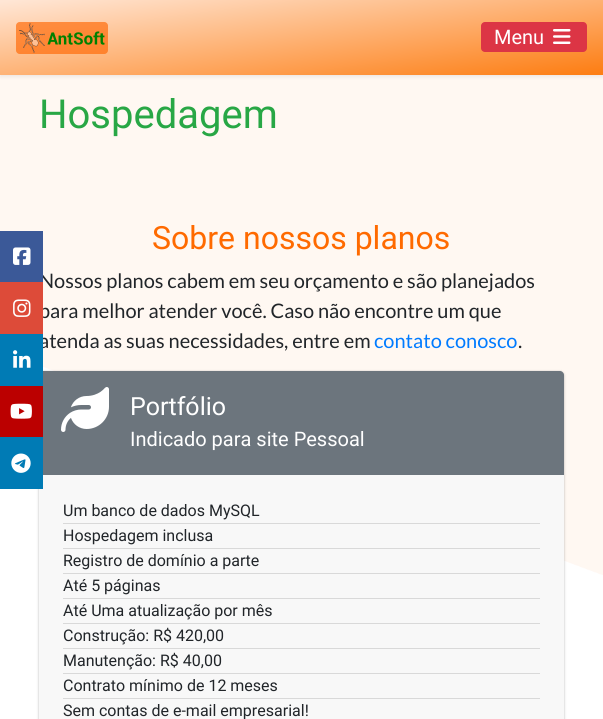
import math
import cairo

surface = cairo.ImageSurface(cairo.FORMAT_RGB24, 603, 719)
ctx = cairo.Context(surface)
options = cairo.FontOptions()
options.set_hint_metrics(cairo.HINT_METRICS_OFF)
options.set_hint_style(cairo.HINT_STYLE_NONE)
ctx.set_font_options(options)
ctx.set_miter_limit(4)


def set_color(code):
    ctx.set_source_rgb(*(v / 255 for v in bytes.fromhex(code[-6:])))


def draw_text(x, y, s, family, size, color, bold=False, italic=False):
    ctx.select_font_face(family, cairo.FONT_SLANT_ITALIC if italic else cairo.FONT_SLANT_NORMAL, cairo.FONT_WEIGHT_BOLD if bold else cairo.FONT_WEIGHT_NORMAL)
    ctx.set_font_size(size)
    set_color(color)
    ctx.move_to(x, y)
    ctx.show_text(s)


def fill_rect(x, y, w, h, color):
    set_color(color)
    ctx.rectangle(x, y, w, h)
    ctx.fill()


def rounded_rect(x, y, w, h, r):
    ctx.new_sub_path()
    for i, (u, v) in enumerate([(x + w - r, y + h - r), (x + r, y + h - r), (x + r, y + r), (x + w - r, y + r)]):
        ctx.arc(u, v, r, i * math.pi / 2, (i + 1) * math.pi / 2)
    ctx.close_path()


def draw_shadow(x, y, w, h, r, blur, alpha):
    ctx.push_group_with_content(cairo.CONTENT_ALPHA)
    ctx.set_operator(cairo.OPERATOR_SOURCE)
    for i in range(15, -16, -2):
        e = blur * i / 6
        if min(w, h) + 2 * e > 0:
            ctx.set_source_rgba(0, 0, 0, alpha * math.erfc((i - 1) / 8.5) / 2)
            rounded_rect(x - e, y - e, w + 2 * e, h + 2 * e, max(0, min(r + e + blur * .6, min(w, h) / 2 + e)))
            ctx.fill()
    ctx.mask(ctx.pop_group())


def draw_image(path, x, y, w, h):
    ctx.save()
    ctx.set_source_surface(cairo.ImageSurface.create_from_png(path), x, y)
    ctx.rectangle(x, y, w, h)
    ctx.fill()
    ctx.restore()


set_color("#ffffff")
ctx.paint()
draw_image("assets/img9.png", 0, 75, 603, 500)
set_color("#000000")
draw_shadow(0, 2, 603, 75, 0, 2, 0.07)
gradient = cairo.LinearGradient(292, -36, 311, 111)
gradient.add_color_stop_rgba(0, 1, 0.902, 0.835, 1)
gradient.add_color_stop_rgba(1, 0.992, 0.494, 0.078, 1)
ctx.set_source(gradient)
ctx.rectangle(0, 0, 603, 75)
ctx.fill()
draw_image("assets/img1.png", 16, 22, 92, 32)
set_color("#dc3545")
rounded_rect(481, 22, 106, 30, 4)
ctx.fill()
draw_text(494, 44, "Menu", "Roboto", 20, "#ffffff")
draw_image("assets/img2.png", 553, 29, 18, 15)
draw_text(39, 288, "Nossos planos cabem em seu orçamento e são planejados", "Lato", 20, "#212529")
fill_rect(0, 231, 43, 51, "#3b5998")
draw_image("assets/img3.png", 13, 247, 18, 18)
draw_text(39, 318, "para melhor atender você. Caso não encontre um que", "Lato", 20, "#212529")
draw_text(39, 348, "atenda as suas necessidades, entre em", "Lato", 20, "#212529")
fill_rect(0, 282, 43, 52, "#dd4b39")
draw_image("assets/img4.png", 13, 299, 18, 18)
set_color("#000000")
draw_shadow(39, 372, 525, 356, 4, 1.5, 0.2)
draw_shadow(39, 371, 525, 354, 4, 0.5, 0.12)
set_color("#6c757d")
ctx.new_path()
ctx.move_to(43, 371)
ctx.line_to(560, 371)
ctx.curve_to(562, 371, 564, 373, 564, 375)
ctx.line_to(564, 475)
ctx.line_to(39, 475)
ctx.line_to(39, 375)
ctx.curve_to(39, 373, 41, 371, 43, 371)
ctx.close_path()
ctx.fill()
fill_rect(0, 334, 43, 52, "#007bb5")
draw_image("assets/img5.png", 13, 350, 18, 18)
fill_rect(0, 386, 43, 51, "#bb0000")
draw_image("assets/img6.png", 10, 403, 22, 16)
fill_rect(39, 475, 525, 244, "#f8f8f8")
fill_rect(0, 437, 43, 52, "#007bb5")
draw_image("assets/img7.png", 11, 453, 20, 20)
draw_text(39, 128, "Hospedagem", "Roboto", 40, "#28a745")
draw_text(152, 249, "Sobre nossos planos", "Roboto", 32, "#ff6a00")
draw_text(374, 348, "contato conosco", "Lato", 20, "#007bff")
draw_text(518, 348, ".", "Lato", 20, "#212529")
draw_image("assets/img8.png", 61, 387, 48, 45)
draw_text(130, 415, "Portfólio", "Roboto", 25, "#ffffff")
draw_text(130, 446, "Indicado para site Pessoal", "Roboto", 20, "#ffffff")
fill_rect(63, 523, 477, 1, "#d9d9d9")
draw_text(63, 516, "Um banco de dados MySQL", "Roboto", 16, "#212529")
fill_rect(63, 548, 477, 1, "#d9d9d9")
draw_text(63, 541, "Hospedagem inclusa", "Roboto", 16, "#212529")
fill_rect(63, 573, 477, 1, "#d9d9d9")
draw_text(63, 566, "Registro de domínio a parte", "Roboto", 16, "#212529")
fill_rect(63, 598, 477, 1, "#d9d9d9")
draw_text(63, 591, "Até 5 páginas", "Roboto", 16, "#212529")
fill_rect(63, 623, 477, 1, "#d9d9d9")
draw_text(63, 616, "Até Uma atualização por mês", "Roboto", 16, "#212529")
fill_rect(63, 648, 477, 1, "#d9d9d9")
draw_text(63, 641, "Construção: R$ 420,00", "Roboto", 16, "#212529")
fill_rect(63, 673, 477, 1, "#d9d9d9")
draw_text(63, 666, "Manutenção: R$ 40,00", "Roboto", 16, "#212529")
fill_rect(63, 698, 477, 1, "#d9d9d9")
draw_text(63, 691, "Contrato mínimo de 12 meses", "Roboto", 16, "#212529")
draw_text(63, 716, "Sem contas de e-mail empresarial!", "Roboto", 16, "#212529")
surface.write_to_png("output.png")
